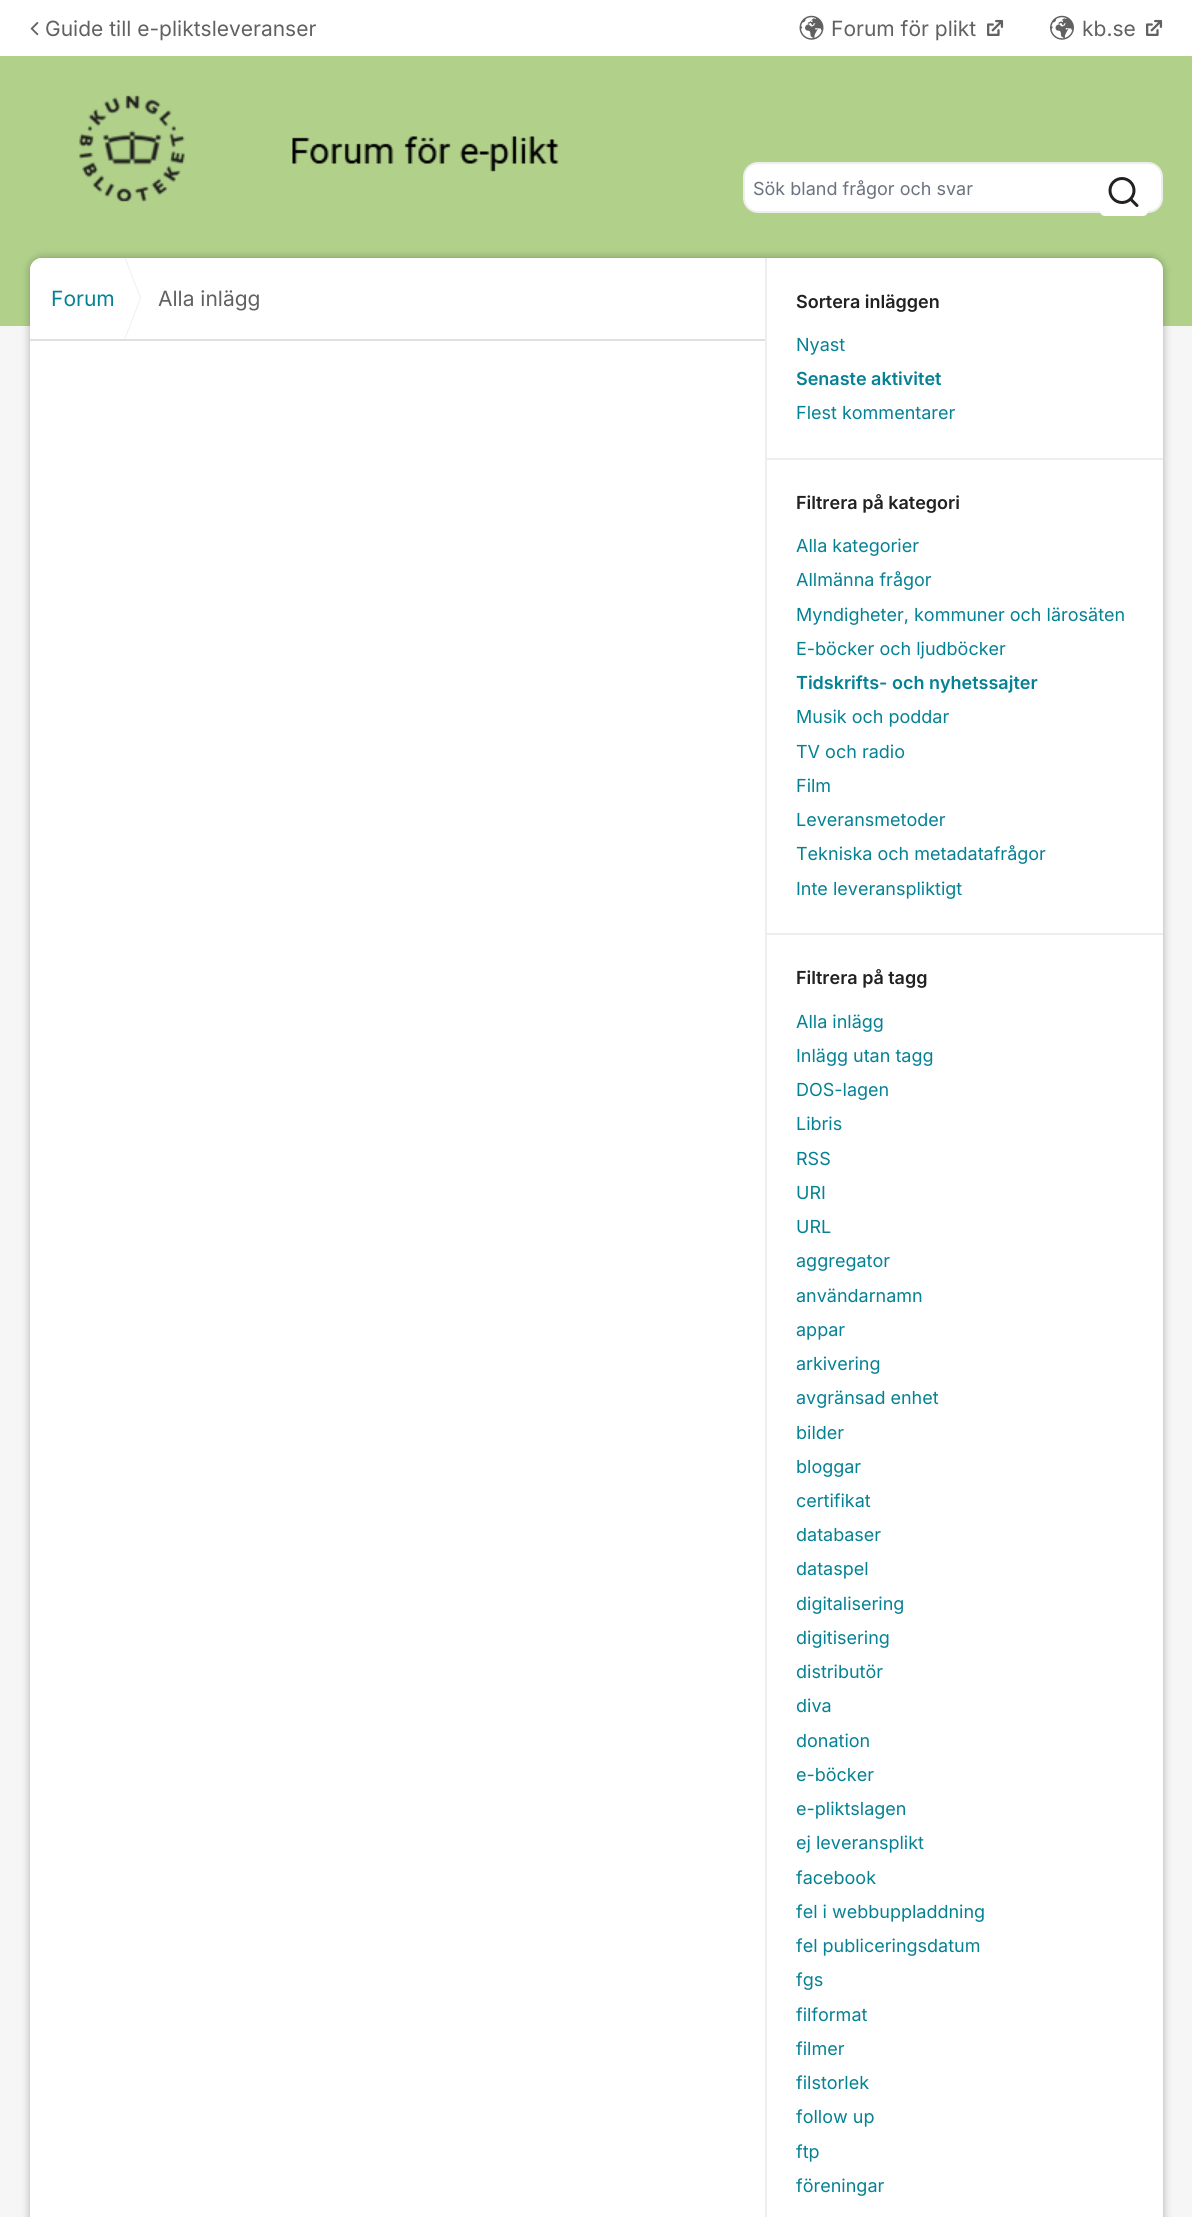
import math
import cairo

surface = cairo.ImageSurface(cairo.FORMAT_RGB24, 1192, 2217)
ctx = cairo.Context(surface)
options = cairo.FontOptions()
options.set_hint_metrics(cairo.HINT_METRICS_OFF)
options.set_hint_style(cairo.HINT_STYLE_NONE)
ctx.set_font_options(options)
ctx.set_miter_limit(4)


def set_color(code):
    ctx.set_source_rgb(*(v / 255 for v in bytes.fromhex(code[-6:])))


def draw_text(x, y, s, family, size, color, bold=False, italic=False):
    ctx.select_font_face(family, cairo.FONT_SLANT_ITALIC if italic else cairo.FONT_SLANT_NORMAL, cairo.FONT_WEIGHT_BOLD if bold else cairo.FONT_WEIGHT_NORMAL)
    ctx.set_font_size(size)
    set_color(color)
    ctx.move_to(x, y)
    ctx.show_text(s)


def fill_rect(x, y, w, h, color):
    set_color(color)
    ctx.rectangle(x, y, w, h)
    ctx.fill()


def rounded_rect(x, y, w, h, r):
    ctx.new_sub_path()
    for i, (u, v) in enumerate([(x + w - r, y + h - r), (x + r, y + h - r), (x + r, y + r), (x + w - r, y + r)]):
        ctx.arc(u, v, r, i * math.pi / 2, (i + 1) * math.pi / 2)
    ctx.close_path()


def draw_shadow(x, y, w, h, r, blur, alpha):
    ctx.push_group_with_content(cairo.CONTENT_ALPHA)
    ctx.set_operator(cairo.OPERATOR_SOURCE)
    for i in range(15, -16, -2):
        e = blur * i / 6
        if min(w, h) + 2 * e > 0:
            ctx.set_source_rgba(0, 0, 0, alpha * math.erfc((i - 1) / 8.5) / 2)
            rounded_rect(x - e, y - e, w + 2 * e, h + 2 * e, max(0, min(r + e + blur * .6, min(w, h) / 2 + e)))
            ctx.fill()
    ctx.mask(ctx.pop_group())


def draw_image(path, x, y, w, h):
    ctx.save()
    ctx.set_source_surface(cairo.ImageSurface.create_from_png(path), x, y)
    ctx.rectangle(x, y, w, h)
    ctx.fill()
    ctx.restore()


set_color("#f6f6f6")
ctx.paint()
fill_rect(0, 0, 1192, 56, "#ffffff")
draw_image("assets/img1.png", 30, 22, 9, 14)
draw_text(45, 36, "Guide till e-pliktsleveranser", "Inter", 21, "#616161")
draw_image("assets/img2.png", 799, 15, 25, 25)
draw_text(831, 36, "Forum för plikt", "Inter", 21, "#616161")
draw_image("assets/img3.png", 987, 19, 17, 17)
draw_image("assets/img4.png", 1050, 15, 24, 25)
draw_text(1082, 36, "kb.se", "Inter", 21, "#616161")
draw_image("assets/img3.png", 1146, 19, 17, 17)
fill_rect(0, 56, 1192, 270, "#b1d18b")
draw_image("assets/img5.png", 79, 95, 480, 107)
set_color("#ffffff")
rounded_rect(744, 163, 418, 49, 14)
ctx.fill_preserve()
set_color("#eeeeee")
ctx.stroke()
draw_text(753, 195, "Sök bland frågor och svar", "Inter", 18, "#6b7280")
set_color("#ffffff")
rounded_rect(1100, 168, 48, 48, 5)
ctx.fill()
draw_image("assets/img6.png", 1108, 177, 31, 30)
set_color("#000000")
draw_shadow(30, 258, 1133, 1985, 12, 4.5, 0.3)
set_color("#ffffff")
ctx.new_path()
ctx.move_to(42, 258)
ctx.line_to(1151, 258)
ctx.curve_to(1157.5, 258, 1163, 263.5, 1163, 270)
ctx.line_to(1163, 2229)
ctx.line_to(30, 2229)
ctx.line_to(30, 270)
ctx.curve_to(30, 263.5, 35.5, 258, 42, 258)
ctx.close_path()
ctx.fill()
rounded_rect(30, 258, 737, 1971, 12)
ctx.fill()
fill_rect(30, 339, 737, 2, "#e0e0e0")
ctx.save()
ctx.rectangle(30, 258, 737, 81)
ctx.clip()
set_color("#eeeeee")
ctx.new_path()
ctx.move_to(118, 358)
ctx.line_to(118, 238)
ctx.line_to(141, 298)
ctx.close_path()
ctx.fill()
set_color("#ffffff")
ctx.new_path()
ctx.move_to(117, 358)
ctx.line_to(117, 238)
ctx.line_to(140, 298)
ctx.close_path()
ctx.fill()
ctx.restore()
draw_text(51, 306, "Forum", "Inter", 21, "#058194")
draw_text(158, 306, "Alla inlägg", "Inter", 21, "#616161")
fill_rect(765, 258, 2, 1959, "#eeeeee")
fill_rect(767, 458, 396, 2, "#eeeeee")
draw_text(796, 308, "Sortera inläggen", "Inter SemiBold", 18, "#212121")
draw_text(796, 351, "Nyast", "Inter", 18, "#058194")
draw_text(796, 385, "Senaste aktivitet", "Inter SemiBold", 18, "#058194")
draw_text(796, 419, "Flest kommentarer", "Inter", 18, "#058194")
fill_rect(767, 933, 396, 2, "#eeeeee")
draw_text(796, 509, "Filtrera på kategori", "Inter SemiBold", 18, "#212121")
draw_text(796, 552, "Alla kategorier", "Inter", 18, "#058194")
draw_text(796, 586, "Allmänna frågor", "Inter", 18, "#058194")
draw_text(796, 621, "Myndigheter, kommuner och lärosäten", "Inter", 18, "#058194")
draw_text(796, 655, "E-böcker och ljudböcker", "Inter", 18, "#058194")
draw_text(796, 689, "Tidskrifts- och nyhetssajter", "Inter SemiBold", 18, "#058194")
draw_text(796, 723, "Musik och poddar", "Inter", 18, "#058194")
draw_text(796, 758, "TV och radio", "Inter", 18, "#058194")
draw_text(796, 792, "Film", "Inter", 18, "#058194")
draw_text(796, 826, "Leveransmetoder", "Inter", 18, "#058194")
draw_text(796, 860, "Tekniska och metadatafrågor", "Inter", 18, "#058194")
draw_text(796, 895, "Inte leveranspliktigt", "Inter", 18, "#058194")
draw_text(796, 984, "Filtrera på tagg", "Inter SemiBold", 18, "#212121")
draw_text(796, 1028, "Alla inlägg", "Inter", 18, "#058194")
draw_text(796, 1062, "Inlägg utan tagg", "Inter", 18, "#058194")
draw_text(796, 1096, "DOS-lagen", "Inter", 18, "#058194")
draw_text(796, 1130, "Libris", "Inter", 18, "#058194")
draw_text(796, 1165, "RSS", "Inter", 18, "#058194")
draw_text(796, 1199, "URI", "Inter", 18, "#058194")
draw_text(796, 1233, "URL", "Inter", 18, "#058194")
draw_text(796, 1267, "aggregator", "Inter", 18, "#058194")
draw_text(796, 1302, "användarnamn", "Inter", 18, "#058194")
draw_text(796, 1336, "appar", "Inter", 18, "#058194")
draw_text(796, 1370, "arkivering", "Inter", 18, "#058194")
draw_text(796, 1404, "avgränsad enhet", "Inter", 18, "#058194")
draw_text(796, 1439, "bilder", "Inter", 18, "#058194")
draw_text(796, 1473, "bloggar", "Inter", 18, "#058194")
draw_text(796, 1507, "certifikat", "Inter", 18, "#058194")
draw_text(796, 1541, "databaser", "Inter", 18, "#058194")
draw_text(796, 1575, "dataspel", "Inter", 18, "#058194")
draw_text(796, 1610, "digitalisering", "Inter", 18, "#058194")
draw_text(796, 1644, "digitisering", "Inter", 18, "#058194")
draw_text(796, 1678, "distributör", "Inter", 18, "#058194")
draw_text(796, 1712, "diva", "Inter", 18, "#058194")
draw_text(796, 1747, "donation", "Inter", 18, "#058194")
draw_text(796, 1781, "e-böcker", "Inter", 18, "#058194")
draw_text(796, 1815, "e-pliktslagen", "Inter", 18, "#058194")
draw_text(796, 1849, "ej leveransplikt", "Inter", 18, "#058194")
draw_text(796, 1884, "facebook", "Inter", 18, "#058194")
draw_text(796, 1918, "fel i webbuppladdning", "Inter", 18, "#058194")
draw_text(796, 1952, "fel publiceringsdatum", "Inter", 18, "#058194")
draw_text(796, 1986, "fgs", "Inter", 18, "#058194")
draw_text(796, 2021, "filformat", "Inter", 18, "#058194")
draw_text(796, 2055, "filmer", "Inter", 18, "#058194")
draw_text(796, 2089, "filstorlek", "Inter", 18, "#058194")
draw_text(796, 2123, "follow up", "Inter", 18, "#058194")
draw_text(796, 2158, "ftp", "Inter", 18, "#058194")
draw_text(796, 2192, "föreningar", "Inter", 18, "#058194")
surface.write_to_png("output.png")
